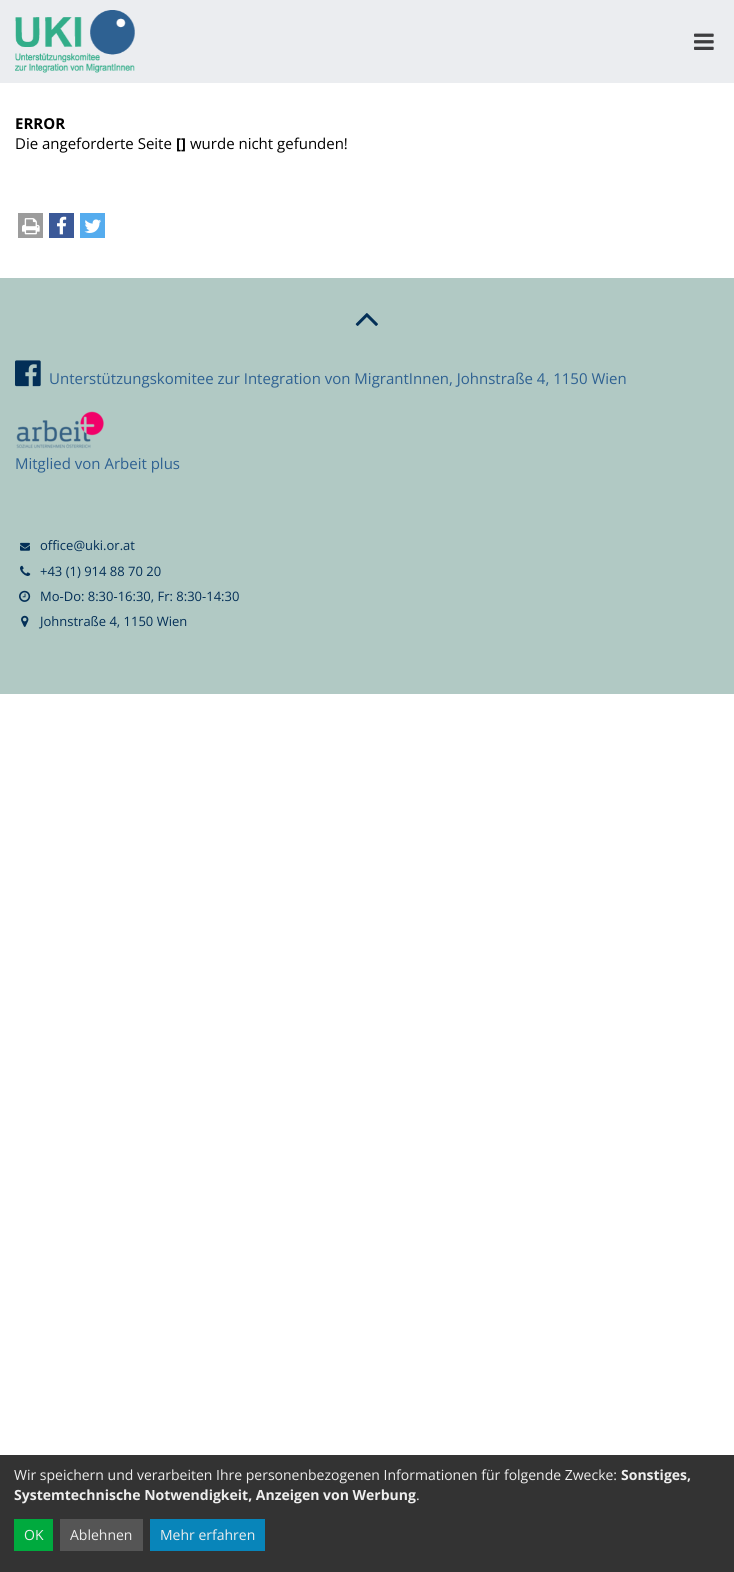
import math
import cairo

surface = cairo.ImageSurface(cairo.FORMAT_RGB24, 734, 1572)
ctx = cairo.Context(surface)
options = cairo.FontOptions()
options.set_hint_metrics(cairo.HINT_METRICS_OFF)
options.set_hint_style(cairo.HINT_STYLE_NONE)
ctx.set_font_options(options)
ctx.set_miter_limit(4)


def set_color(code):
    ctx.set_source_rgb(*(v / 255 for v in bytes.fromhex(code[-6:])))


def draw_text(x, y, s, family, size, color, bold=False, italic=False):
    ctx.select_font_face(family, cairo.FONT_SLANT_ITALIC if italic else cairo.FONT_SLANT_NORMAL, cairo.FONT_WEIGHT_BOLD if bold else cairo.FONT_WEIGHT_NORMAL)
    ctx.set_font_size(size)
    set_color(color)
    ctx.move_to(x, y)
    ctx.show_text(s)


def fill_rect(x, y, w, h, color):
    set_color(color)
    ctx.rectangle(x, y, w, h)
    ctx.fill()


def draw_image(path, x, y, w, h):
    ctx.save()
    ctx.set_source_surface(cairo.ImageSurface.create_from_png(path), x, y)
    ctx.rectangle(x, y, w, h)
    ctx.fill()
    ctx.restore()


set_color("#ffffff")
ctx.paint()
fill_rect(0, 0, 734, 83, "#ebedf0")
draw_image("assets/img1.png", 15, 10, 120, 63)
draw_image("assets/img2.png", 694, 33, 20, 17)
draw_text(15, 129, "ERROR", "Open Sans", 15, "#000000", bold=True)
draw_text(15, 149, "Die angeforderte Seite", "Open Sans", 15, "#000000")
draw_text(176, 149, "[]", "Open Sans", 15, "#000000", bold=True)
draw_text(190, 149, "wurde nicht gefunden!", "Open Sans", 15, "#000000")
fill_rect(18, 213, 25, 25, "#9c9c9c")
draw_image("assets/img3.png", 22, 218, 18, 17)
fill_rect(49, 213, 25, 25, "#3b5998")
draw_image("assets/img4.png", 57, 216, 10, 19)
fill_rect(80, 213, 25, 25, "#55acee")
draw_image("assets/img5.png", 84, 219, 17, 14)
fill_rect(0, 278, 734, 416, "#b1c9c4")
draw_image("assets/img6.png", 355, 313, 23, 13)
draw_image("assets/img7.png", 15, 360, 26, 27)
draw_text(49, 384, "Unterstützungskomitee zur Integration von MigrantInnen, Johnstraße 4, 1150 Wien", "Open Sans", 15, "#2e6192")
draw_image("assets/img8.png", 16, 411, 88, 38)
draw_text(15, 469, "Mitglied von Arbeit plus", "Open Sans", 15, "#2e6192")
draw_image("assets/img9.png", 20, 542, 10, 9)
draw_text(40, 550, "office@uki.or.at", "Open Sans", 13, "#032f57")
draw_image("assets/img10.png", 20, 565, 11, 11)
draw_text(40, 576, "+43 (1) 914 88 70 20", "Open Sans", 13, "#032f57")
draw_image("assets/img11.png", 19, 590, 12, 12)
draw_text(40, 601, "Mo-Do: 8:30-16:30, Fr: 8:30-14:30", "Open Sans", 13, "#032f57")
draw_image("assets/img12.png", 21, 615, 8, 12)
draw_text(40, 626, "Johnstraße 4, 1150 Wien", "Open Sans", 13, "#032f57")
fill_rect(0, 1455, 734, 117, "#333333")
draw_text(14, 1480, "Wir speichern und verarbeiten Ihre personenbezogenen Informationen für folgende Zwecke:", "Open Sans", 14, "#eeeeee")
draw_text(621, 1480, "Sonstiges,", "Open Sans", 14, "#eeeeee", bold=True)
draw_text(14, 1500, "Systemtechnische Notwendigkeit, Anzeigen von Werbung", "Open Sans", 14, "#eeeeee", bold=True)
draw_text(416, 1500, ".", "Open Sans", 14, "#eeeeee")
fill_rect(14, 1519, 39, 32, "#00aa3e")
draw_text(24, 1540, "OK", "Open Sans", 14, "#eeeeee")
fill_rect(60, 1519, 83, 32, "#555555")
draw_text(70, 1540, "Ablehnen", "Open Sans", 14, "#eeeeee")
fill_rect(150, 1519, 115, 32, "#0885ba")
draw_text(160, 1540, "Mehr erfahren", "Open Sans", 14, "#eeeeee")
surface.write_to_png("output.png")
